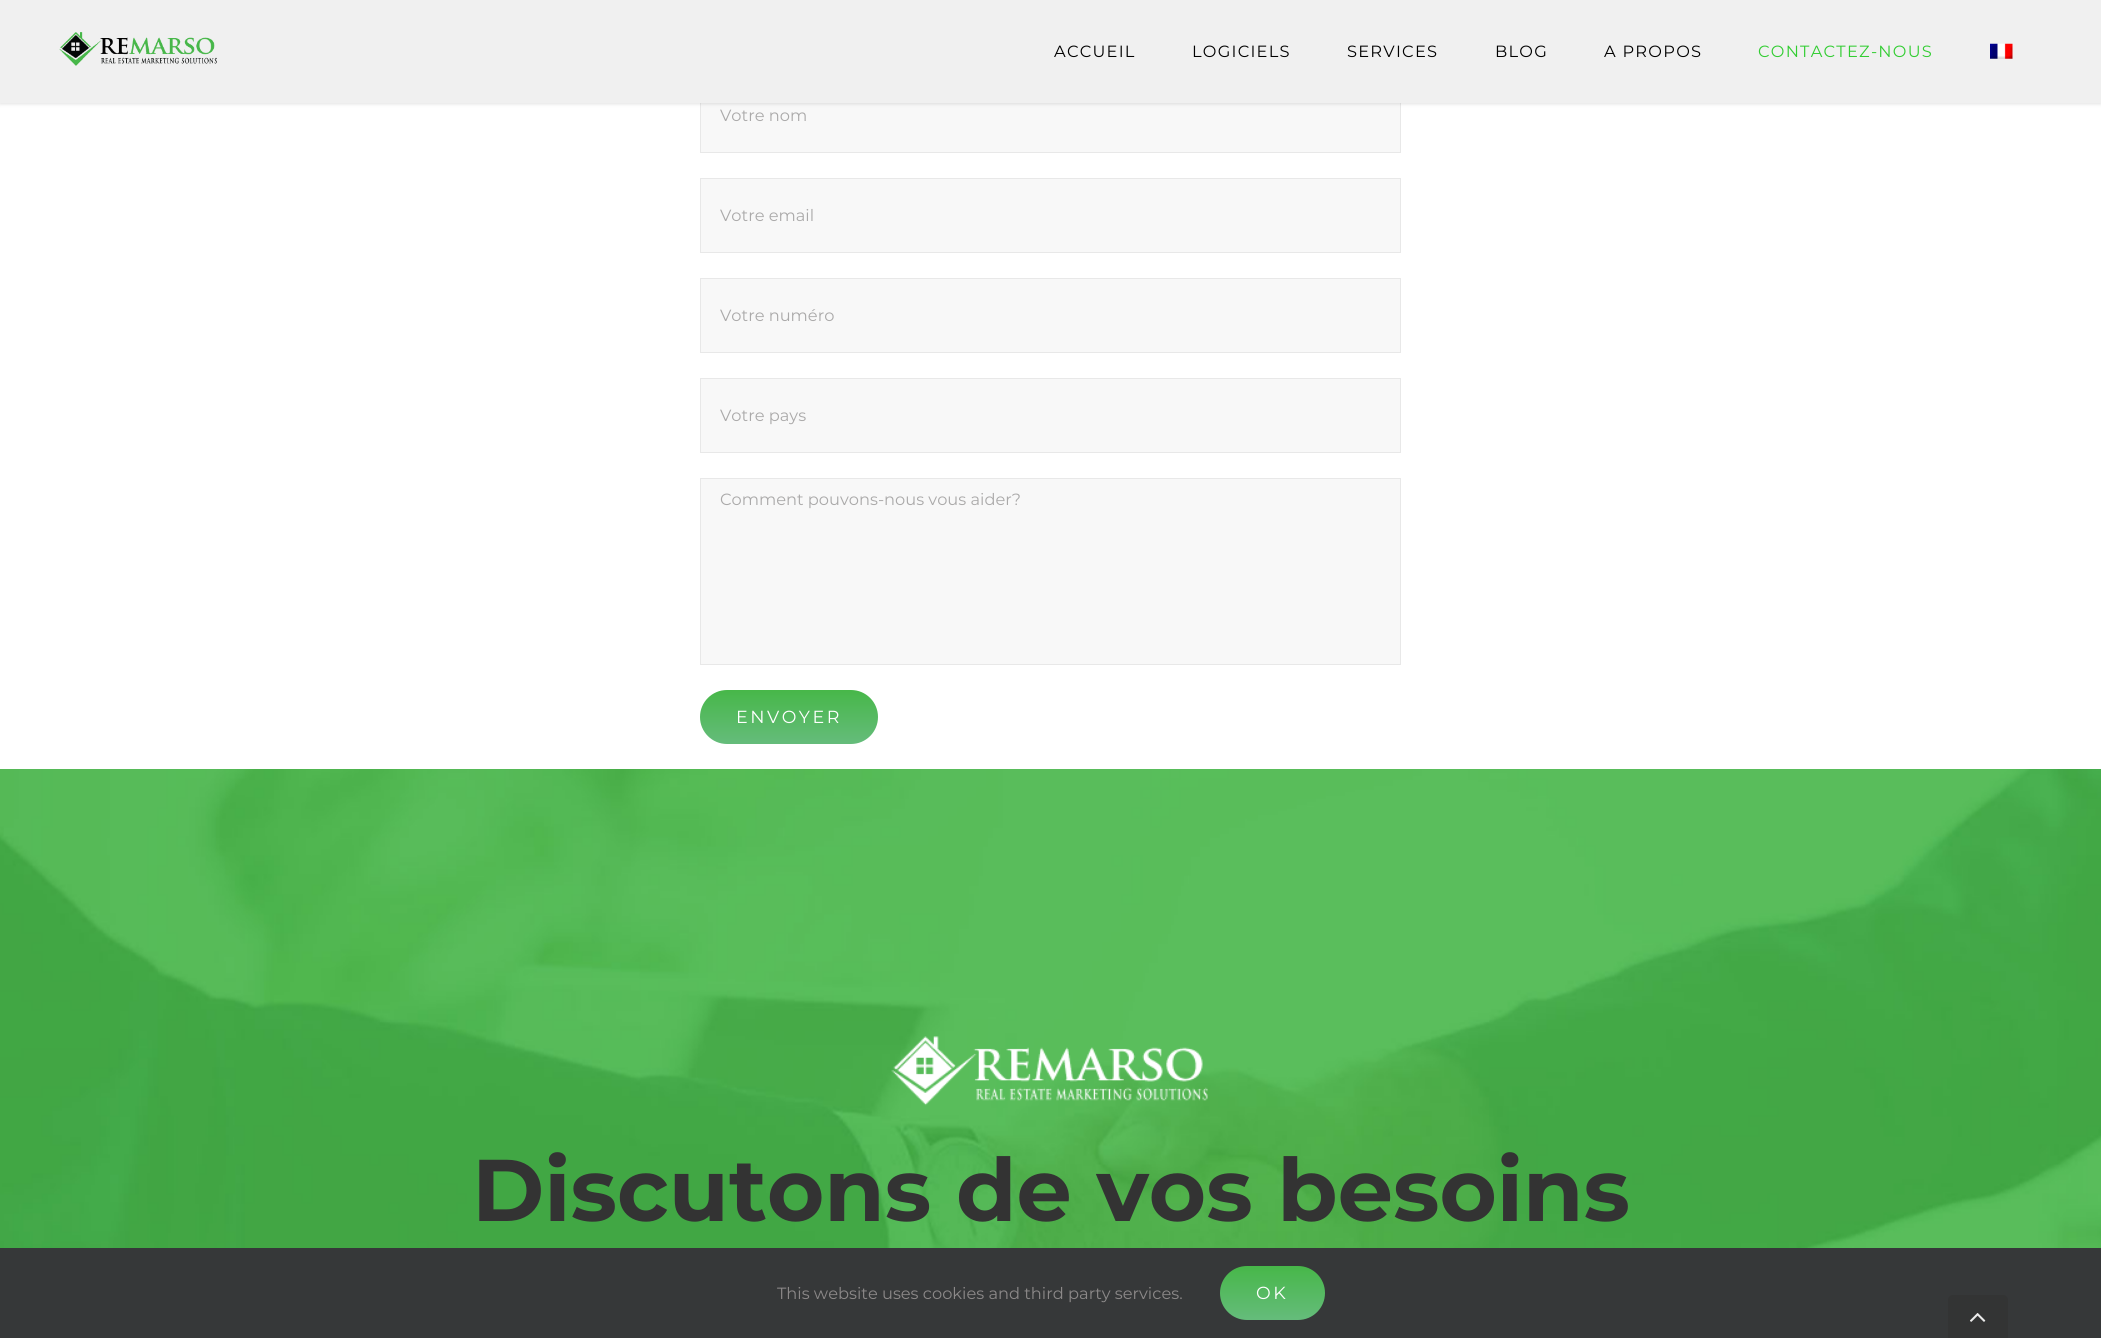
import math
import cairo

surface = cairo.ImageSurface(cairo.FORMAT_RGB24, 2101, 1338)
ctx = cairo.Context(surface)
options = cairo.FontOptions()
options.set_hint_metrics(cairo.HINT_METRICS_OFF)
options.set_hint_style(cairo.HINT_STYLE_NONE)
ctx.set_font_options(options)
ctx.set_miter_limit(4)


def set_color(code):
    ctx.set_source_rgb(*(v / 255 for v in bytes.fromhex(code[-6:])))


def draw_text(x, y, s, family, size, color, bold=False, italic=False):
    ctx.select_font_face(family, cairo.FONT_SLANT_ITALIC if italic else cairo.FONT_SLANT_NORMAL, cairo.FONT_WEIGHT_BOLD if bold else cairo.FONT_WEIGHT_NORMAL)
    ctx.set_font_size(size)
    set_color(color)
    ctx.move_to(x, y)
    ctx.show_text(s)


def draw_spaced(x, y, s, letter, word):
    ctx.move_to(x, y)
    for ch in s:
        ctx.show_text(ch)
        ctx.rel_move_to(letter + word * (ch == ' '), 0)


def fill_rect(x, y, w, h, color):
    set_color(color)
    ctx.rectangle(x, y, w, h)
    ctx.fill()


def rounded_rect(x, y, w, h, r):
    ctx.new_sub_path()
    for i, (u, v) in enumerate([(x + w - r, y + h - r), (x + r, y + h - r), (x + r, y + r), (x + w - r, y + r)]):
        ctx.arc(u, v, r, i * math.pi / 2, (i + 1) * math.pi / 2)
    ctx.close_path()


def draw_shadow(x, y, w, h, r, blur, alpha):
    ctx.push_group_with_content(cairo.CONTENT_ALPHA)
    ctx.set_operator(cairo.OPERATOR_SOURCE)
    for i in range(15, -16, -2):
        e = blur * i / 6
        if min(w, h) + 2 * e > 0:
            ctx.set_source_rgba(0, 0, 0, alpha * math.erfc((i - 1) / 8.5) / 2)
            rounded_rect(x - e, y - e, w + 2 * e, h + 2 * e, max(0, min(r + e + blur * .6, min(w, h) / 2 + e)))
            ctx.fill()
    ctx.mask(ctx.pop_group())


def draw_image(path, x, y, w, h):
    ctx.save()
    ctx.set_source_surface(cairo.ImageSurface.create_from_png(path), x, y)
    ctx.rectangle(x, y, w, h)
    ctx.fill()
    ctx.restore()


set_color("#ffffff")
ctx.paint()
fill_rect(701, 103, 699, 49, "#f8f8f8")
ctx.rectangle(700.5, 78.5, 700, 74)
set_color("#e8e8e8")
ctx.set_line_width(1)
ctx.stroke()
set_color("#000000")
draw_shadow(0, 1, 2101, 103, 0, 2, 0.12)
fill_rect(0, 0, 2101, 103, "#f0f0f0")
draw_image("assets/img1.png", 59, 32, 158, 34)
ctx.select_font_face("Montserrat")
ctx.set_font_size(16.25)
set_color("#000000")
draw_spaced(1054, 57, "ACCUEIL", 1.25, 0)
draw_spaced(1192, 57, "LOGICIELS", 1.25, 0)
draw_spaced(1347, 57, "SERVICES", 1.25, 0)
draw_spaced(1495, 57, "BLOG", 1.25, 0)
draw_spaced(1604, 57, "A PROPOS", 1.25, 0)
set_color("#32cd32")
draw_spaced(1758, 57, "CONTACTEZ-NOUS", 1.25, 0)
draw_image("assets/img2.png", 1990, 43, 23, 16)
draw_text(720, 121, "Votre nom", "Montserrat", 16.25, "#aaa9a9")
set_color("#f8f8f8")
ctx.rectangle(700.5, 178.5, 700, 74)
ctx.fill_preserve()
set_color("#e8e8e8")
ctx.stroke()
draw_text(720, 221, "Votre email", "Montserrat", 16.25, "#aaa9a9")
set_color("#f8f8f8")
ctx.rectangle(700.5, 278.5, 700, 74)
ctx.fill_preserve()
set_color("#e8e8e8")
ctx.stroke()
draw_text(720, 321, "Votre numéro", "Montserrat", 16.25, "#aaa9a9")
set_color("#f8f8f8")
ctx.rectangle(700.5, 378.5, 700, 74)
ctx.fill_preserve()
set_color("#e8e8e8")
ctx.stroke()
draw_text(720, 421, "Votre pays", "Montserrat", 16.25, "#aaa9a9")
set_color("#f8f8f8")
ctx.rectangle(700.5, 478.5, 700, 186)
ctx.fill_preserve()
set_color("#e8e8e8")
ctx.stroke()
draw_text(720, 505, "Comment pouvons-nous vous aider?", "Montserrat", 16.25, "#aaa9a9")
gradient = cairo.LinearGradient(789, 744, 789, 690)
gradient.add_color_stop_rgba(0, 0.396, 0.737, 0.482, 1)
gradient.add_color_stop_rgba(1, 0.278, 0.718, 0.286, 1)
ctx.set_source(gradient)
rounded_rect(700, 690, 178, 54, 27)
ctx.fill()
ctx.set_font_size(17.5)
set_color("#ffffff")
draw_spaced(736, 723, "ENVOYER", 2.5, 0)
draw_image("assets/img3.png", 0, 769, 2101, 479)
draw_image("assets/img4.png", 891, 1036, 317, 70)
draw_text(472, 1221, "Discutons de vos besoins", "Montserrat", 87.5, "#333333", bold=True)
fill_rect(0, 1248, 2101, 90, "#363839")
draw_text(777, 1299, "This website uses cookies and third party services.", "Montserrat", 16.25, "#8c8989")
gradient = cairo.LinearGradient(1273, 1320, 1273, 1266)
gradient.add_color_stop_rgba(0, 0.396, 0.737, 0.482, 1)
gradient.add_color_stop_rgba(1, 0.278, 0.718, 0.286, 1)
ctx.set_source(gradient)
rounded_rect(1220, 1266, 105, 54, 27)
ctx.fill()
ctx.set_font_size(17.5)
set_color("#ffffff")
draw_spaced(1256, 1299, "OK", 2.5, 0)
set_color("#333434")
ctx.new_path()
ctx.move_to(1953, 1295)
ctx.line_to(2003, 1295)
ctx.curve_to(2006, 1295, 2008, 1297, 2008, 1300)
ctx.line_to(2008, 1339)
ctx.line_to(1948, 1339)
ctx.line_to(1948, 1300)
ctx.curve_to(1948, 1297, 1950, 1295, 1953, 1295)
ctx.close_path()
ctx.fill()
draw_image("assets/img5.png", 1970, 1313, 16, 9)
surface.write_to_png("output.png")
